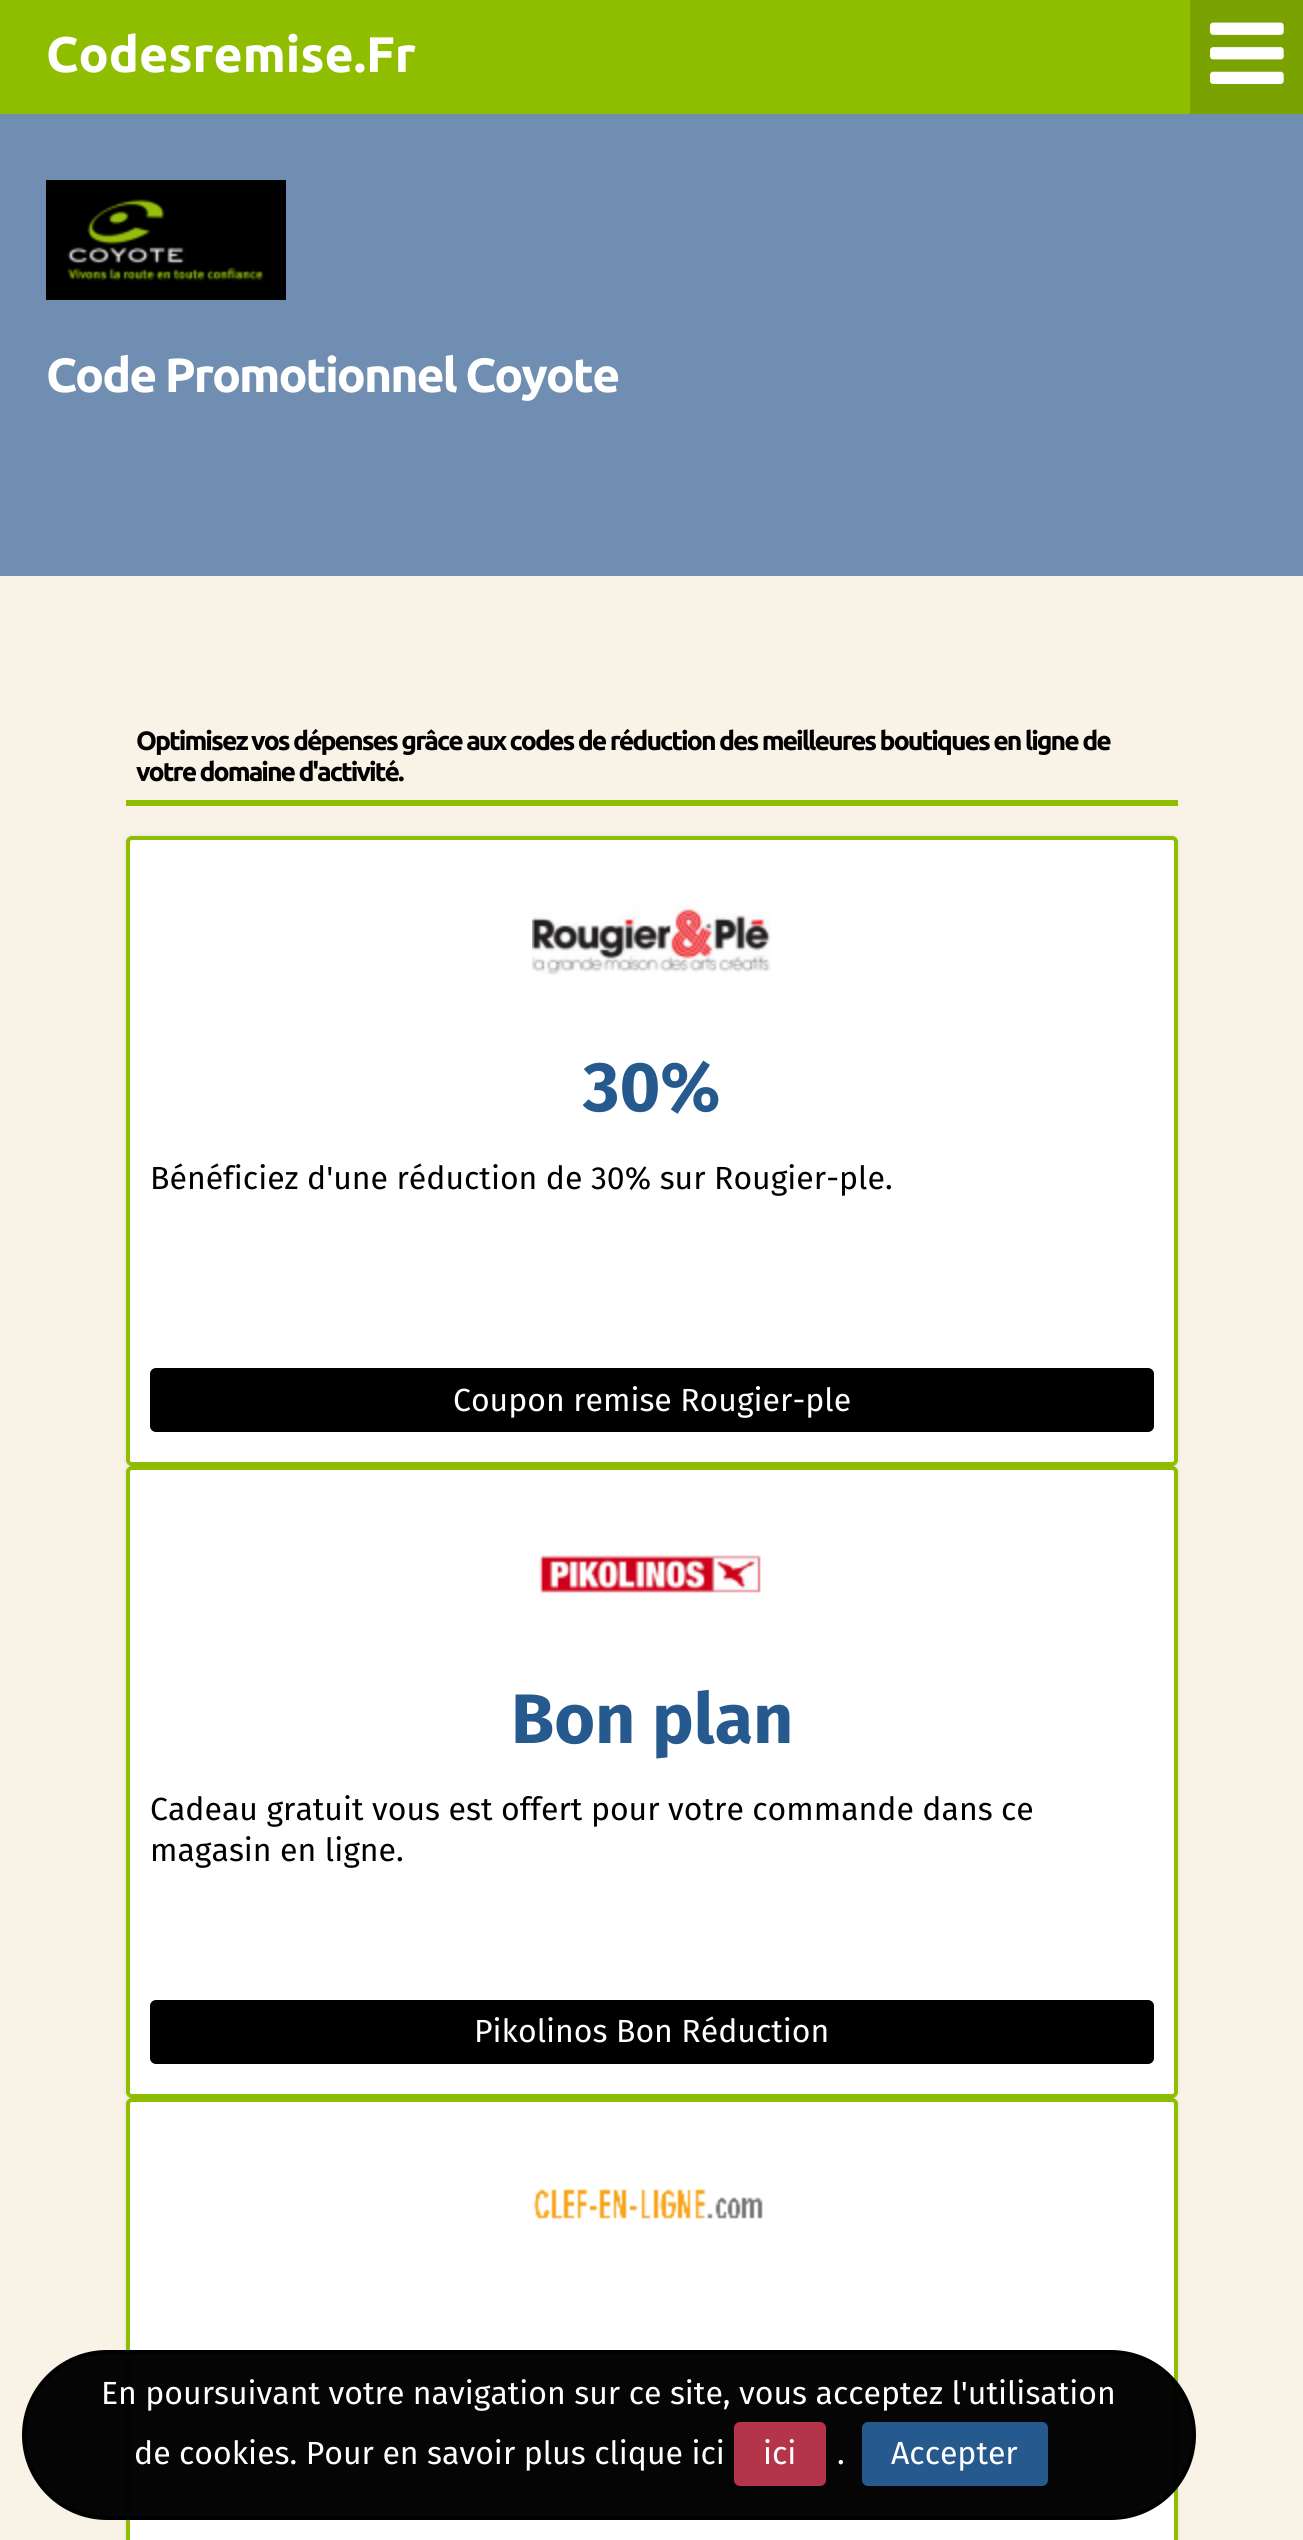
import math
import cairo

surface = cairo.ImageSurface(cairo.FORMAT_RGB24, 1303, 2540)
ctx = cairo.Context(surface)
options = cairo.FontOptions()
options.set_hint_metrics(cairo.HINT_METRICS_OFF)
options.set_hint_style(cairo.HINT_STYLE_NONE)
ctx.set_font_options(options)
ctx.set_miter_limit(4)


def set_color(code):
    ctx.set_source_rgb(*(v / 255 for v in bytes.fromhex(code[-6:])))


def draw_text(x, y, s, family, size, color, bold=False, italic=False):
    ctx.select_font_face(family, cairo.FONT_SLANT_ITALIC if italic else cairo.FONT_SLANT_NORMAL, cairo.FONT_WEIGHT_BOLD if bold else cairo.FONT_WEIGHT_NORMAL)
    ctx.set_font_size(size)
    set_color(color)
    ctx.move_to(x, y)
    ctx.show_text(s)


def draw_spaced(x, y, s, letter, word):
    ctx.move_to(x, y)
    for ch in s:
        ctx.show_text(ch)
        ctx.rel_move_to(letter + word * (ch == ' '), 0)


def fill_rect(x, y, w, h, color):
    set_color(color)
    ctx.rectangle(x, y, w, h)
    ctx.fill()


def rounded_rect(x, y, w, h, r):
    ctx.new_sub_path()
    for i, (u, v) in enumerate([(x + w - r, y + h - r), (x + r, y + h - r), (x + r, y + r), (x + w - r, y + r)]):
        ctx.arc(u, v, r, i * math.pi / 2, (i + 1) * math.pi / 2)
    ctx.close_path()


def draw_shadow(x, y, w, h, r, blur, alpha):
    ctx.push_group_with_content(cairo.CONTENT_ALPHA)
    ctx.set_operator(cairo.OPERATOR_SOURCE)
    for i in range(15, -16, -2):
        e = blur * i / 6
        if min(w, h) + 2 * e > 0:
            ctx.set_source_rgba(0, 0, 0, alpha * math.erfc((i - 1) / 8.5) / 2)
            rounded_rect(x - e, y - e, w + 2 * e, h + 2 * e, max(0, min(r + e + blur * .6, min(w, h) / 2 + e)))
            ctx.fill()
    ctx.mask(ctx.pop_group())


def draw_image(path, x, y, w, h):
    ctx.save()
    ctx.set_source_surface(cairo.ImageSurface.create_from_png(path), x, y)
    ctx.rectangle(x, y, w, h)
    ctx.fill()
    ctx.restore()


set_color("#f9f2e7")
ctx.paint()
fill_rect(0, 0, 1190, 114, "#8fbe00")
draw_text(46, 72, "Codesremise.Fr", "Ubuntu", 50, "#ffffff", bold=True)
fill_rect(1190, 0, 113, 114, "#7aa200")
draw_image("assets/img1.png", 1210, 22, 74, 62)
fill_rect(0, 114, 1303, 462, "#708eb1")
draw_image("assets/img2.png", 46, 180, 240, 120)
ctx.set_font_size(48)
set_color("#ffffff")
draw_spaced(46, 392, "Code Promotionnel Coyote", -2, 0)
fill_rect(126, 800, 1052, 6, "#8fbe00")
ctx.set_font_size(26.55)
set_color("#000000")
draw_spaced(136, 750, "Optimisez vos dépenses grâce aux codes de réduction des meilleures boutiques en ligne de", -2, 0)
draw_spaced(136, 781, "votre domaine d'activité.", -2, 0)
set_color("#000000")
draw_shadow(126, 836, 1052, 630, 6, 2, 0.1)
set_color("#ffffff")
rounded_rect(128, 838, 1048, 626, 4)
ctx.fill_preserve()
set_color("#8fbe00")
ctx.set_line_width(4)
ctx.stroke()
draw_image("assets/img3.png", 532, 904, 239, 71)
draw_text(583, 1111, "30%", "Fira Sans", 70, "#26598e", bold=True)
draw_text(150, 1189, "Bénéficiez d'une réduction de 30% sur Rougier-ple.", "Fira Sans", 32, "#000000")
rounded_rect(150, 1368, 1004, 64, 6)
ctx.fill()
draw_text(453, 1411, "Coupon remise Rougier-ple", "Fira Sans", 32, "#ffffff")
set_color("#000000")
draw_shadow(126, 1466, 1052, 632, 6, 2, 0.1)
set_color("#ffffff")
rounded_rect(128, 1468, 1048, 628, 4)
ctx.fill_preserve()
set_color("#8fbe00")
ctx.stroke()
draw_image("assets/img4.png", 539, 1555, 222, 39)
draw_text(511, 1743, "Bon plan", "Fira Sans", 70, "#26598e", bold=True)
draw_text(150, 1820, "Cadeau gratuit vous est offert pour votre commande dans ce", "Fira Sans", 32, "#000000")
draw_text(150, 1861, "magasin en ligne.", "Fira Sans", 32, "#000000")
rounded_rect(150, 2000, 1004, 64, 6)
ctx.fill()
draw_text(474, 2042, "Pikolinos Bon Réduction", "Fira Sans", 32, "#ffffff")
set_color("#000000")
draw_shadow(126, 2098, 1052, 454, 6, 2, 0.1)
set_color("#ffffff")
rounded_rect(128, 2100, 1048, 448, 4)
ctx.fill_preserve()
set_color("#8fbe00")
ctx.stroke()
draw_image("assets/img5.png", 533, 2189, 230, 30)
ctx.set_source_rgba(0, 0, 0, 0.98)
rounded_rect(24, 2352, 1170, 166, 83)
ctx.fill_preserve()
set_color("#000000")
ctx.stroke()
draw_text(101, 2404, "En poursuivant votre navigation sur ce site, vous acceptez l'utilisation", "Fira Sans", 32, "#ffffff")
draw_text(134, 2464, "de cookies. Pour en savoir plus clique ici", "Fira Sans", 32, "#ffffff")
set_color("#b4344a")
rounded_rect(734, 2422, 92, 64, 6)
ctx.fill()
draw_text(763, 2464, "ici", "Fira Sans", 32, "#ffffff")
draw_text(837, 2464, ".", "Fira Sans", 32, "#ffffff")
set_color("#26598e")
rounded_rect(862, 2422, 186, 64, 6)
ctx.fill()
draw_text(891, 2464, "Accepter", "Fira Sans", 32, "#ffffff")
surface.write_to_png("output.png")
